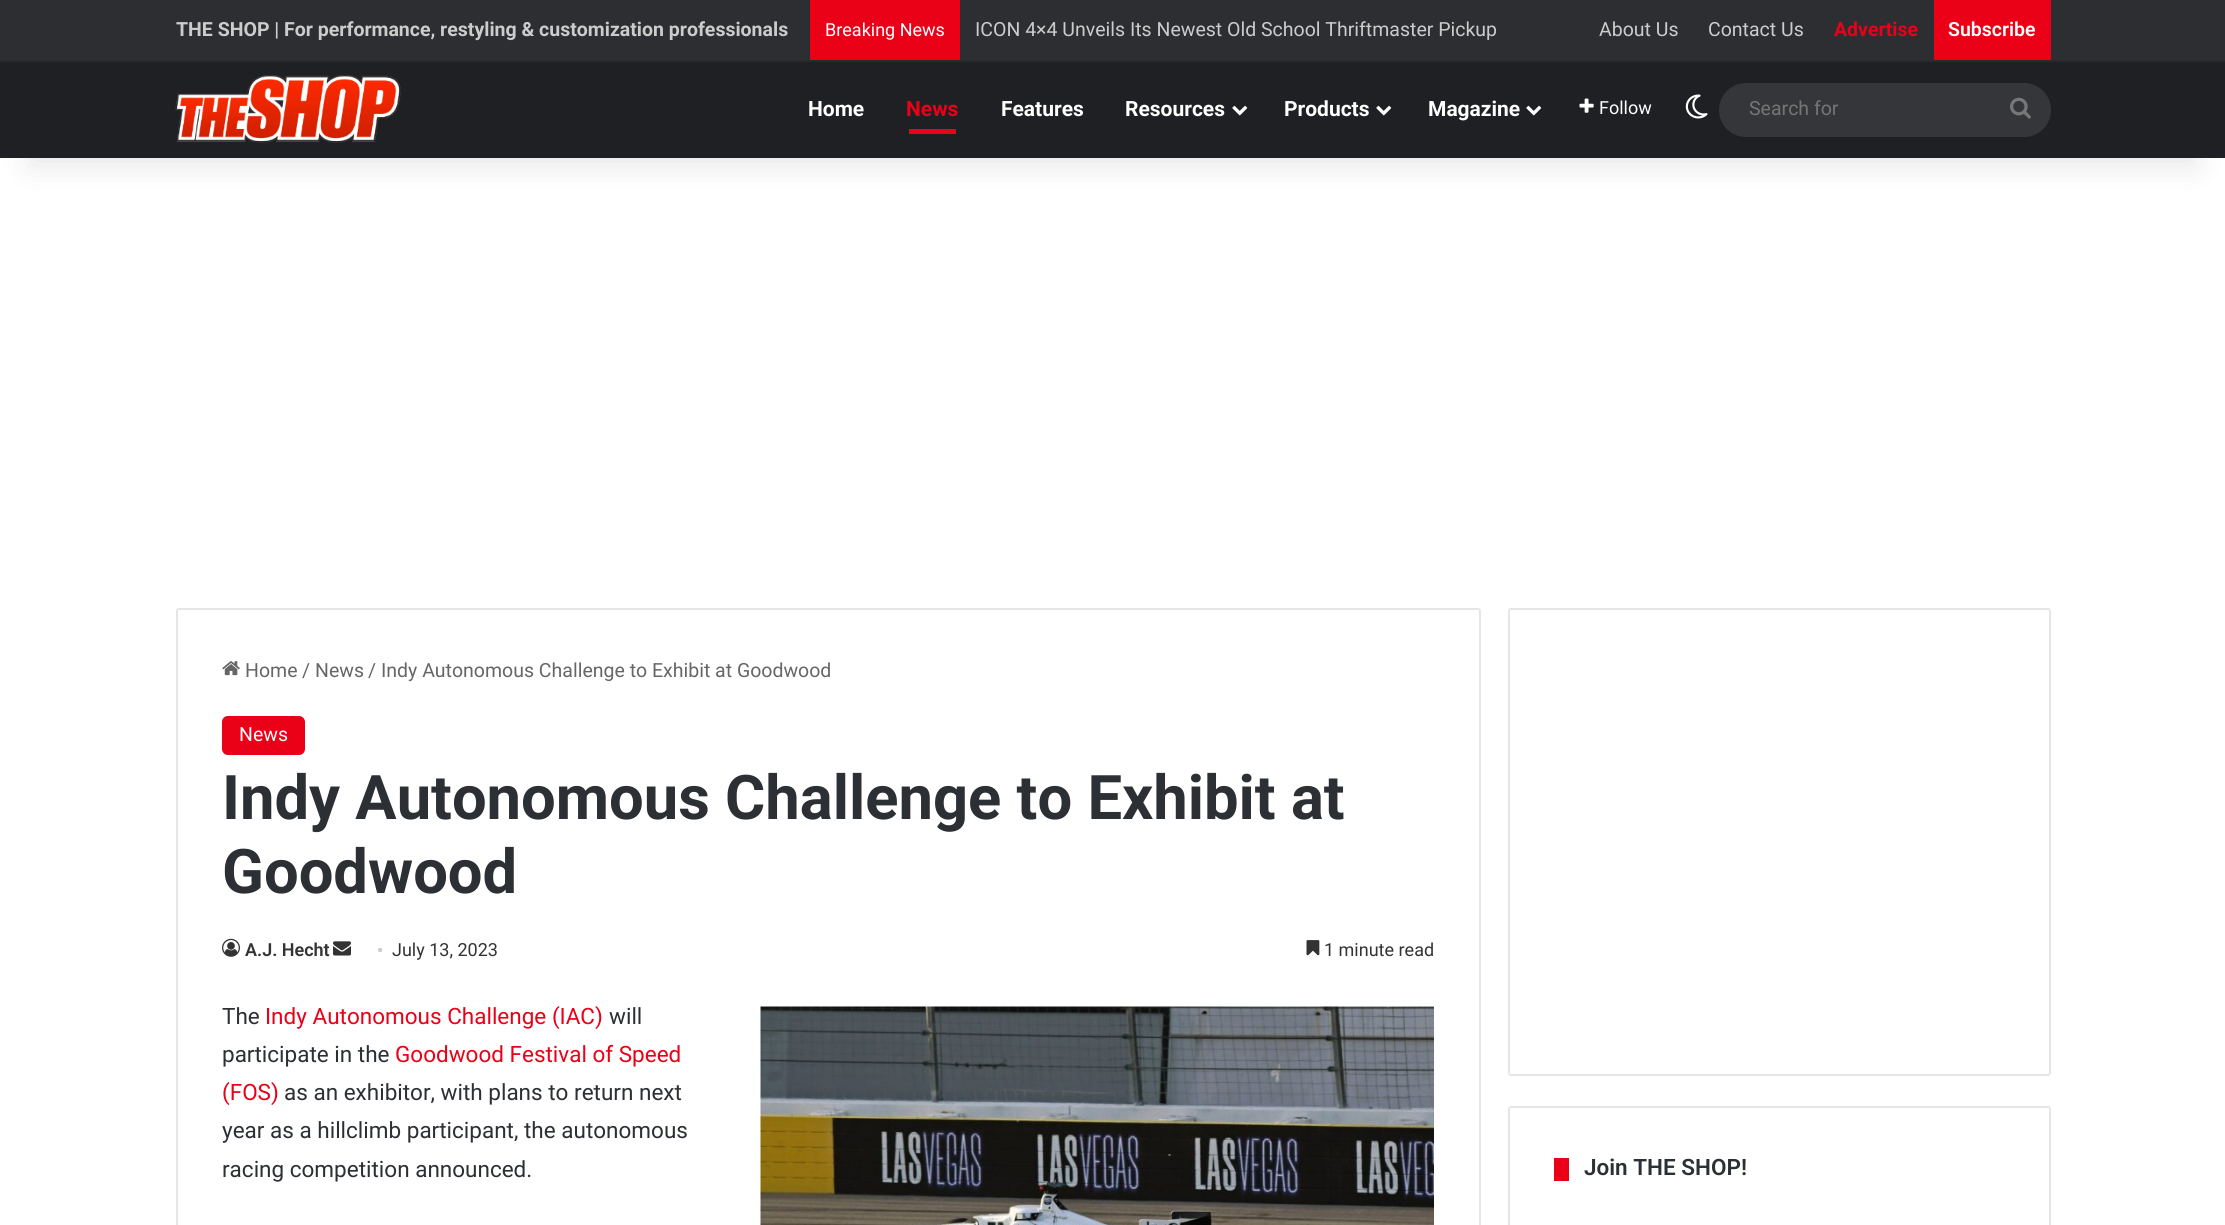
import math
import cairo

surface = cairo.ImageSurface(cairo.FORMAT_RGB24, 2225, 1225)
ctx = cairo.Context(surface)
options = cairo.FontOptions()
options.set_hint_metrics(cairo.HINT_METRICS_OFF)
options.set_hint_style(cairo.HINT_STYLE_NONE)
ctx.set_font_options(options)
ctx.set_miter_limit(4)


def set_color(code):
    ctx.set_source_rgb(*(v / 255 for v in bytes.fromhex(code[-6:])))


def draw_text(x, y, s, family, size, color, bold=False, italic=False):
    ctx.select_font_face(family, cairo.FONT_SLANT_ITALIC if italic else cairo.FONT_SLANT_NORMAL, cairo.FONT_WEIGHT_BOLD if bold else cairo.FONT_WEIGHT_NORMAL)
    ctx.set_font_size(size)
    set_color(color)
    ctx.move_to(x, y)
    ctx.show_text(s)


def fill_rect(x, y, w, h, color):
    set_color(color)
    ctx.rectangle(x, y, w, h)
    ctx.fill()


def rounded_rect(x, y, w, h, r):
    ctx.new_sub_path()
    for i, (u, v) in enumerate([(x + w - r, y + h - r), (x + r, y + h - r), (x + r, y + r), (x + w - r, y + r)]):
        ctx.arc(u, v, r, i * math.pi / 2, (i + 1) * math.pi / 2)
    ctx.close_path()


def draw_shadow(x, y, w, h, r, blur, alpha):
    ctx.push_group_with_content(cairo.CONTENT_ALPHA)
    ctx.set_operator(cairo.OPERATOR_SOURCE)
    for i in range(15, -16, -2):
        e = blur * i / 6
        if min(w, h) + 2 * e > 0:
            ctx.set_source_rgba(0, 0, 0, alpha * math.erfc((i - 1) / 8.5) / 2)
            rounded_rect(x - e, y - e, w + 2 * e, h + 2 * e, max(0, min(r + e + blur * .6, min(w, h) / 2 + e)))
            ctx.fill()
    ctx.mask(ctx.pop_group())


def draw_image(path, x, y, w, h):
    ctx.save()
    ctx.set_source_surface(cairo.ImageSurface.create_from_png(path), x, y)
    ctx.rectangle(x, y, w, h)
    ctx.fill()
    ctx.restore()


set_color("#ffffff")
ctx.paint()
set_color("#000000")
draw_shadow(30, 68, 2166, 97, 0, 15, 0.1)
fill_rect(0, 0, 2225, 60, "#2c2e32")
fill_rect(0, 60, 2225, 2, "#28292d")
draw_text(176, 36, "THE SHOP | For performance, restyling & customization professionals", "Roboto", 19.5, "#cccccc", bold=True)
fill_rect(810, 0, 150, 60, "#ea0017")
draw_text(825, 36, "Breaking News", "Roboto", 18, "#ffffff")
draw_text(975, 36, "ICON 4×4 Unveils Its Newest Old School Thriftmaster Pickup", "Roboto", 19.5, "#cccccc")
draw_text(1599, 36, "About Us", "Roboto", 19.5, "#cccccc")
draw_text(1708, 36, "Contact Us", "Roboto", 19.5, "#cccccc")
draw_text(1834, 36, "Advertise", "Roboto", 19.5, "#ea0017", bold=True)
fill_rect(1934, 0, 117, 60, "#ea0017")
draw_text(1948, 36, "Subscribe", "Roboto SemiBold", 19.5, "#ffffff")
fill_rect(0, 62, 2225, 96, "#1f2024")
draw_image("assets/img1.png", 175, 75, 226, 68)
draw_text(808, 116, "Home", "Roboto", 21, "#ffffff", bold=True)
draw_text(906, 116, "News", "Roboto", 21, "#ea0017", bold=True)
fill_rect(909, 129, 47, 5, "#ea0017")
draw_text(1001, 116, "Features", "Roboto", 21, "#ffffff", bold=True)
draw_text(1125, 116, "Resources", "Roboto", 21, "#ffffff", bold=True)
draw_image("assets/img2.png", 1232, 105, 16, 11)
draw_text(1284, 116, "Products", "Roboto", 21, "#ffffff", bold=True)
draw_image("assets/img2.png", 1376, 105, 16, 11)
draw_text(1428, 116, "Magazine", "Roboto", 21, "#ffffff", bold=True)
draw_image("assets/img2.png", 1526, 105, 16, 11)
draw_image("assets/img3.png", 1579, 98, 15, 15)
draw_text(1599, 114, "Follow", "Roboto", 18, "#ffffff")
draw_image("assets/img4.png", 1685, 94, 23, 25)
set_color("#35363a")
rounded_rect(1719, 83, 332, 54, 27)
ctx.fill()
draw_text(1749, 115, "Search for", "Roboto", 19.5, "#757575")
draw_image("assets/img5.png", 2010, 97, 21, 22)
rounded_rect(177, 609, 1303, 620, 2)
set_color("#e6e6e6")
ctx.stroke()
draw_image("assets/img6.png", 222, 661, 18, 15)
draw_text(245, 677, "Home", "Roboto", 19.5, "#666666")
draw_text(302, 677, "/", "Roboto", 19.5, "#666666")
draw_text(315, 677, "News", "Roboto", 19.5, "#666666")
draw_text(368, 677, "/", "Roboto", 19.5, "#666666")
draw_text(381, 677, "Indy Autonomous Challenge to Exhibit at Goodwood", "Roboto", 19.5, "#666666")
set_color("#ea0017")
rounded_rect(222, 716, 83, 39, 6)
ctx.fill()
draw_text(239, 741, "News", "Roboto", 19.5, "#ffffff")
draw_text(222, 819, "Indy Autonomous Challenge to Exhibit at", "Roboto", 61.5, "#2c2f34", bold=True)
draw_text(222, 893, "Goodwood", "Roboto", 61.5, "#2c2f34", bold=True)
draw_image("assets/img7.png", 222, 938, 18, 19)
draw_text(245, 956, "A.J. Hecht", "Roboto SemiBold", 18, "#333333")
draw_image("assets/img8.png", 333, 941, 18, 15)
draw_text(377, 956, "•", "Liberation Serif", 18, "#cccccc")
draw_text(392, 956, "July 13, 2023", "Roboto", 18, "#333333")
draw_image("assets/img9.png", 1306, 940, 14, 16)
draw_text(1324, 956, "1 minute read", "Roboto", 18, "#333333")
draw_text(222, 1024, "The", "Roboto", 22.5, "#2c2f34")
draw_text(265, 1024, "Indy Autonomous Challenge (IAC)", "Roboto", 22.5, "#ea0017")
draw_text(609, 1024, "will", "Roboto", 22.5, "#2c2f34")
draw_image("assets/img10.png", 760, 1006, 674, 219)
draw_text(222, 1062, "participate in the", "Roboto", 22.5, "#2c2f34")
draw_text(395, 1062, "Goodwood Festival of Speed", "Roboto", 22.5, "#ea0017")
draw_text(222, 1100, "(FOS)", "Roboto", 22.5, "#ea0017")
draw_text(284, 1100, "as an exhibitor, with plans to return next", "Roboto", 22.5, "#2c2f34")
draw_text(222, 1138, "year as a hillclimb participant, the autonomous", "Roboto", 22.5, "#2c2f34")
draw_text(222, 1177, "racing competition announced.", "Roboto", 22.5, "#2c2f34")
rounded_rect(1509, 609, 541, 466, 2)
set_color("#e6e6e6")
ctx.stroke()
rounded_rect(1509, 1107, 541, 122, 2)
ctx.stroke()
fill_rect(1554, 1158, 15, 23, "#ea0017")
draw_text(1584, 1175, "Join THE SHOP!", "Roboto SemiBold", 22.5, "#2c2f34")
surface.write_to_png("output.png")
